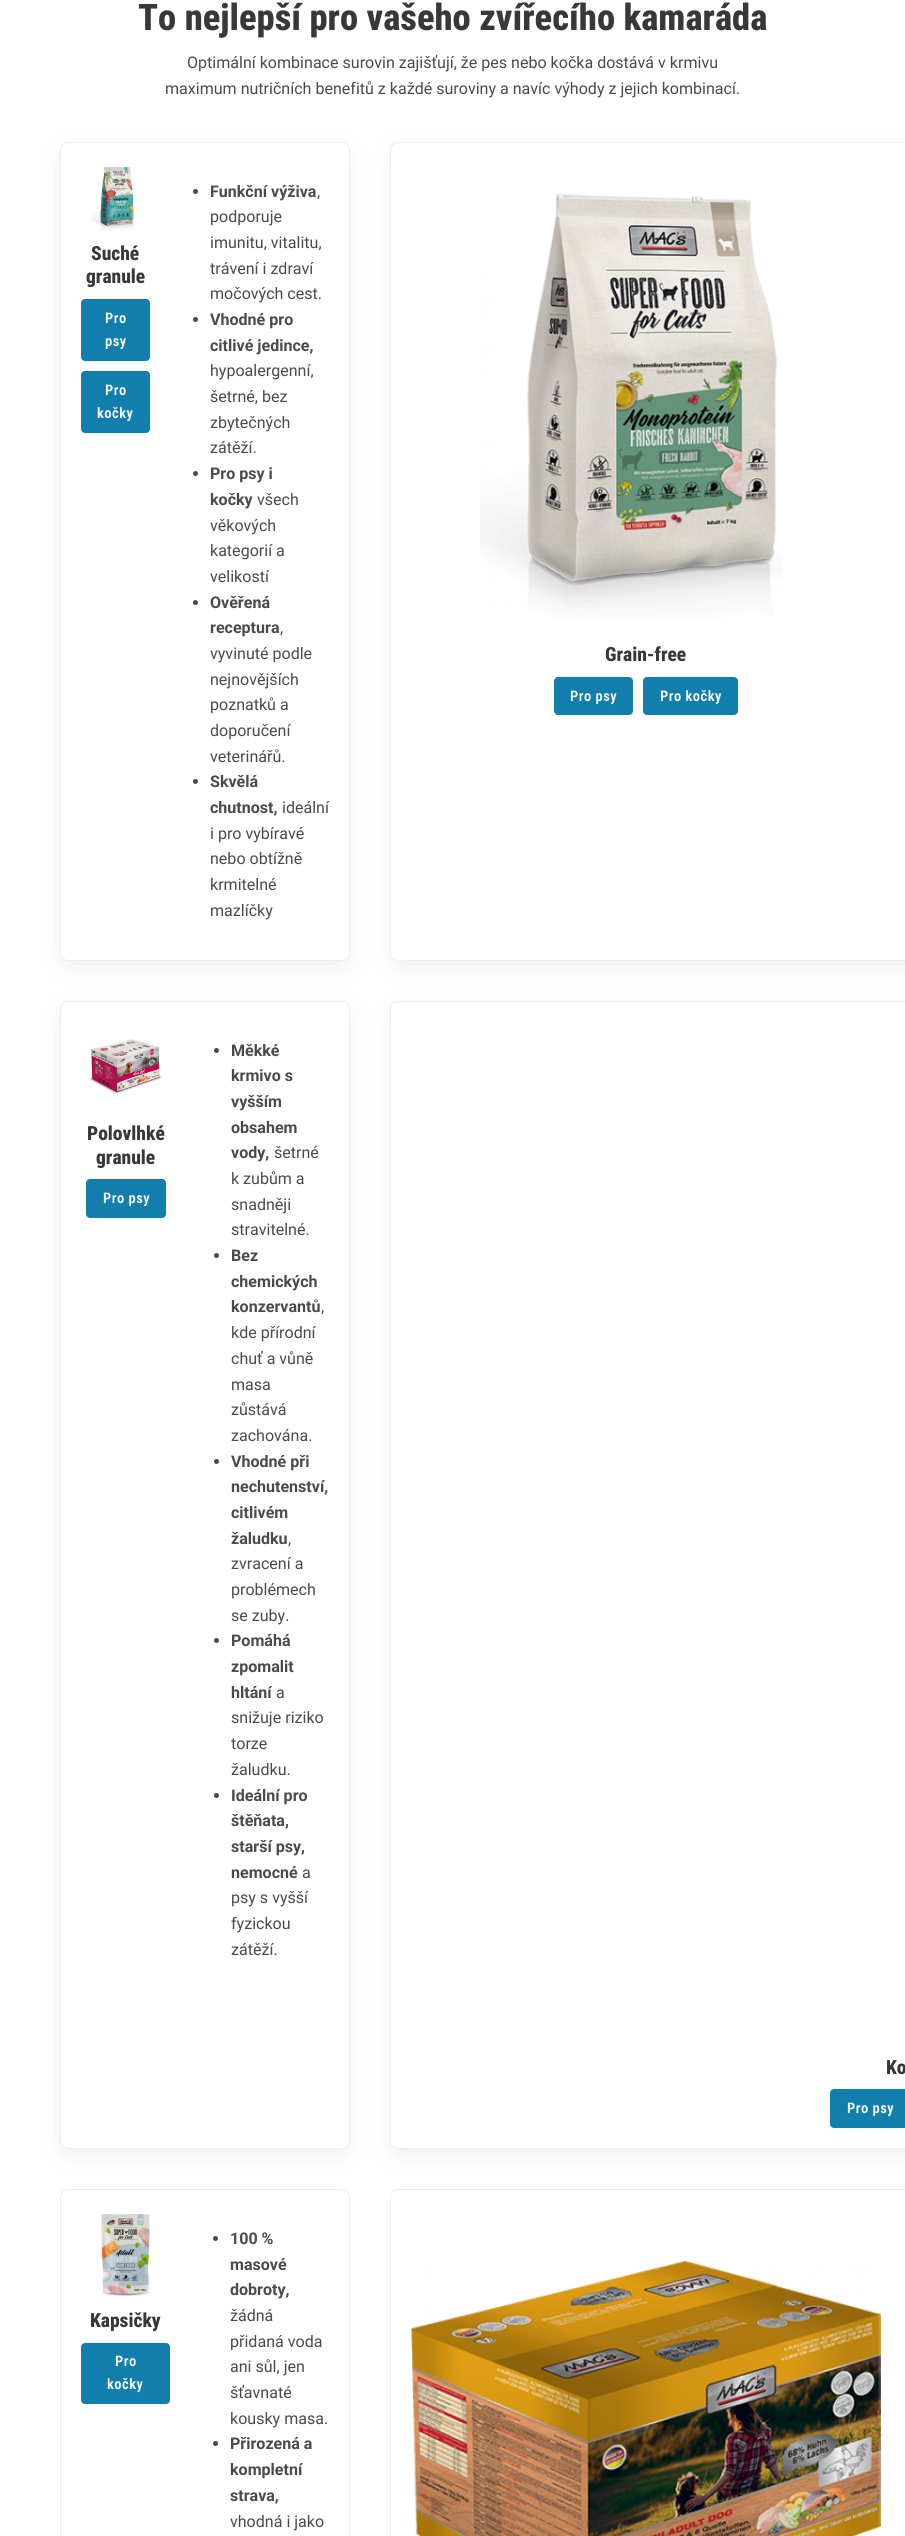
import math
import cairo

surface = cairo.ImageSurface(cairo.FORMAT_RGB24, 905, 2536)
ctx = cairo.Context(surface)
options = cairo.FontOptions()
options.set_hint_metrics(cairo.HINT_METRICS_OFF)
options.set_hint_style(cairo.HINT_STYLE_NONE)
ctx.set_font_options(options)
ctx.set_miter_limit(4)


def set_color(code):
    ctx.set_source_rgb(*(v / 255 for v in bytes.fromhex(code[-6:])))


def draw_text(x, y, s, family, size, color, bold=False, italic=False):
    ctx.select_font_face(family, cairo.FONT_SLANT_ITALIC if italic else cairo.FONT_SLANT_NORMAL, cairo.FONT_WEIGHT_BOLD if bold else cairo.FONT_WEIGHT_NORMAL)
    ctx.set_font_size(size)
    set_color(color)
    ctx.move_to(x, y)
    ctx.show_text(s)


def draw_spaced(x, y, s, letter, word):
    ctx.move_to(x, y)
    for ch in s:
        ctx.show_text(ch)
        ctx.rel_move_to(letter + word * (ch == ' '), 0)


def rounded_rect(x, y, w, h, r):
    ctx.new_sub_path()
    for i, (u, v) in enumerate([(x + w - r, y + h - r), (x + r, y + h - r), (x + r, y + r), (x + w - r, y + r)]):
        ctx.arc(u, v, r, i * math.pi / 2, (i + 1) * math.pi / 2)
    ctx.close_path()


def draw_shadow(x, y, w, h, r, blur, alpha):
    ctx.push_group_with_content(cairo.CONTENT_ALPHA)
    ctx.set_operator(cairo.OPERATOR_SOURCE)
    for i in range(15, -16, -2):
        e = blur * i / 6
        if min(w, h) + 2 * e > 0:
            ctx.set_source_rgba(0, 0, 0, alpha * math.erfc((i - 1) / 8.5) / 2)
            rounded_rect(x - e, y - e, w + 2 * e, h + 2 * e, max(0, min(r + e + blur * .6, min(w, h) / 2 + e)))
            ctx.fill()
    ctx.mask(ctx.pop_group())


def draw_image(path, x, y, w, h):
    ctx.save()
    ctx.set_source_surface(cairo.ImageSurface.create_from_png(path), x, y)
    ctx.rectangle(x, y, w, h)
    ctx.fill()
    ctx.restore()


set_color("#ffffff")
ctx.paint()
draw_text(138, 30, "To nejlepší pro vašeho zvířecího kamaráda", "Roboto Condensed ExtraBold", 36.6, "#383838")
draw_text(187, 68, "Optimální kombinace surovin zajišťují, že pes nebo kočka dostává v krmivu", "Roboto", 16.05, "#4a4a4a")
draw_text(165, 94, "maximum nutričních benefitů z každé suroviny a navíc výhody z jejich kombinací.", "Roboto", 16.05, "#4a4a4a")
ctx.save()
ctx.set_fill_rule(cairo.FILL_RULE_EVEN_ODD)
ctx.new_path()
ctx.move_to(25, 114)
ctx.line_to(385, 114)
ctx.line_to(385, 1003)
ctx.line_to(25, 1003)
ctx.close_path()
ctx.move_to(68, 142)
ctx.line_to(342, 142)
ctx.curve_to(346.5, 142, 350, 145.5, 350, 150)
ctx.line_to(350, 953)
ctx.curve_to(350, 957.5, 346.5, 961, 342, 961)
ctx.line_to(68, 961)
ctx.curve_to(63.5, 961, 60, 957.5, 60, 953)
ctx.line_to(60, 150)
ctx.curve_to(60, 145.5, 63.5, 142, 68, 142)
ctx.close_path()
ctx.clip()
set_color("#64646f")
draw_shadow(70, 159, 270, 799, 0, 14.5, 0.2)
ctx.restore()
rounded_rect(60.5, 142.5, 289, 818, 7.5)
set_color("#eeeeee")
ctx.set_line_width(1)
ctx.stroke()
draw_image("assets/img1.png", 91, 165, 44, 66)
draw_text(91, 260, "Suché", "Roboto Condensed ExtraBold", 19.5, "#383838")
draw_text(86, 283, "granule", "Roboto Condensed ExtraBold", 19.5, "#383838")
set_color("#117ead")
rounded_rect(82, 300, 67, 60, 3)
ctx.fill_preserve()
ctx.set_line_width(2)
ctx.stroke()
ctx.select_font_face("Roboto Condensed SemiBold")
ctx.set_font_size(14.5)
set_color("#ffffff")
draw_spaced(105, 323, "Pro", 0.5, 0)
draw_spaced(105, 346, "psy", 0.5, 0)
set_color("#117ead")
rounded_rect(82, 372, 67, 60, 3)
ctx.fill_preserve()
ctx.stroke()
set_color("#ffffff")
draw_spaced(105, 395, "Pro", 0.5, 0)
draw_spaced(97, 418, "kočky", 0.5, 0)
set_color("#4a4a4a")
ctx.new_path()
ctx.arc(195.5, 191.5, 2.5, 0, 2 * math.pi)
ctx.fill()
draw_text(210, 197, "Funkční výživa", "Roboto", 16.05, "#4a4a4a", bold=True)
draw_text(317, 197, ",", "Roboto", 16.05, "#4a4a4a")
draw_text(210, 222, "podporuje", "Roboto", 16.05, "#4a4a4a")
draw_text(210, 248, "imunitu, vitalitu,", "Roboto", 16.05, "#4a4a4a")
draw_text(210, 274, "trávení i zdraví", "Roboto", 16.05, "#4a4a4a")
draw_text(210, 299, "močových cest.", "Roboto", 16.05, "#4a4a4a")
ctx.new_path()
ctx.arc(195.5, 319.5, 2.5, 0, 2 * math.pi)
ctx.fill()
draw_text(210, 325, "Vhodné pro", "Roboto", 16.05, "#4a4a4a", bold=True)
draw_text(210, 351, "citlivé jedince,", "Roboto", 16.05, "#4a4a4a", bold=True)
draw_text(210, 376, "hypoalergenní,", "Roboto", 16.05, "#4a4a4a")
draw_text(210, 402, "šetrné, bez", "Roboto", 16.05, "#4a4a4a")
draw_text(210, 428, "zbytečných", "Roboto", 16.05, "#4a4a4a")
draw_text(210, 453, "zátěží.", "Roboto", 16.05, "#4a4a4a")
ctx.new_path()
ctx.arc(195.5, 473.5, 2.5, 0, 2 * math.pi)
ctx.fill()
draw_text(210, 479, "Pro psy i", "Roboto", 16.05, "#4a4a4a", bold=True)
draw_text(210, 505, "kočky", "Roboto", 16.05, "#4a4a4a", bold=True)
draw_text(257, 505, "všech", "Roboto", 16.05, "#4a4a4a")
draw_text(210, 531, "věkových", "Roboto", 16.05, "#4a4a4a")
draw_text(210, 556, "kategorií a", "Roboto", 16.05, "#4a4a4a")
draw_text(210, 582, "velikostí", "Roboto", 16.05, "#4a4a4a")
ctx.new_path()
ctx.arc(195.5, 602.5, 2.5, 0, 2 * math.pi)
ctx.fill()
draw_text(210, 608, "Ověřená", "Roboto", 16.05, "#4a4a4a", bold=True)
draw_text(210, 633, "receptura", "Roboto", 16.05, "#4a4a4a", bold=True)
draw_text(280, 633, ",", "Roboto", 16.05, "#4a4a4a")
draw_text(210, 659, "vyvinuté podle", "Roboto", 16.05, "#4a4a4a")
draw_text(210, 685, "nejnovějších", "Roboto", 16.05, "#4a4a4a")
draw_text(210, 710, "poznatků a", "Roboto", 16.05, "#4a4a4a")
draw_text(210, 736, "doporučení", "Roboto", 16.05, "#4a4a4a")
draw_text(210, 762, "veterinářů.", "Roboto", 16.05, "#4a4a4a")
ctx.new_path()
ctx.arc(195.5, 781.5, 2.5, 0, 2 * math.pi)
ctx.fill()
draw_text(210, 787, "Skvělá", "Roboto", 16.05, "#4a4a4a", bold=True)
draw_text(210, 813, "chutnost,", "Roboto", 16.05, "#4a4a4a", bold=True)
draw_text(282, 813, "ideální", "Roboto", 16.05, "#4a4a4a")
draw_text(210, 839, "i pro vybíravé", "Roboto", 16.05, "#4a4a4a")
draw_text(210, 864, "nebo obtížně", "Roboto", 16.05, "#4a4a4a")
draw_text(210, 890, "krmitelné", "Roboto", 16.05, "#4a4a4a")
draw_text(210, 916, "mazlíčky", "Roboto", 16.05, "#4a4a4a")
ctx.save()
ctx.set_fill_rule(cairo.FILL_RULE_EVEN_ODD)
ctx.new_path()
ctx.move_to(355, 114)
ctx.line_to(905, 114)
ctx.line_to(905, 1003)
ctx.line_to(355, 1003)
ctx.close_path()
ctx.move_to(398, 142)
ctx.line_to(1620, 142)
ctx.curve_to(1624.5, 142, 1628, 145.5, 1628, 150)
ctx.line_to(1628, 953)
ctx.curve_to(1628, 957.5, 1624.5, 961, 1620, 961)
ctx.line_to(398, 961)
ctx.curve_to(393.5, 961, 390, 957.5, 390, 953)
ctx.line_to(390, 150)
ctx.curve_to(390, 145.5, 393.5, 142, 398, 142)
ctx.close_path()
ctx.clip()
set_color("#64646f")
draw_shadow(400, 159, 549, 799, 0, 14.5, 0.2)
ctx.restore()
rounded_rect(390.5, 142.5, 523, 818, 7.5)
set_color("#eeeeee")
ctx.set_line_width(1)
ctx.stroke()
draw_image("assets/img2.png", 480, 194, 303, 424)
draw_text(605, 661, "Grain-free", "Roboto Condensed ExtraBold", 19.5, "#383838")
set_color("#117ead")
rounded_rect(555, 678, 77, 36, 3)
ctx.fill_preserve()
ctx.set_line_width(2)
ctx.stroke()
ctx.select_font_face("Roboto Condensed SemiBold")
ctx.set_font_size(14.5)
set_color("#ffffff")
draw_spaced(570, 701, "Pro psy", 0.5, 0)
set_color("#117ead")
rounded_rect(644, 678, 93, 36, 3)
ctx.fill_preserve()
ctx.stroke()
set_color("#ffffff")
draw_spaced(660, 701, "Pro kočky", 0.5, 0)
ctx.save()
ctx.set_fill_rule(cairo.FILL_RULE_EVEN_ODD)
ctx.new_path()
ctx.move_to(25, 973)
ctx.line_to(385, 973)
ctx.line_to(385, 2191)
ctx.line_to(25, 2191)
ctx.close_path()
ctx.move_to(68, 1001)
ctx.line_to(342, 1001)
ctx.curve_to(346.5, 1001, 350, 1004.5, 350, 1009)
ctx.line_to(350, 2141)
ctx.curve_to(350, 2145.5, 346.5, 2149, 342, 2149)
ctx.line_to(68, 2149)
ctx.curve_to(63.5, 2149, 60, 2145.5, 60, 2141)
ctx.line_to(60, 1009)
ctx.curve_to(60, 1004.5, 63.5, 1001, 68, 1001)
ctx.close_path()
ctx.clip()
set_color("#64646f")
draw_shadow(70, 1018, 270, 1128, 0, 14.5, 0.2)
ctx.restore()
rounded_rect(60.5, 1001.5, 289, 1147, 7.5)
set_color("#eeeeee")
ctx.set_line_width(1)
ctx.stroke()
draw_image("assets/img3.png", 89, 1039, 74, 54)
draw_text(87, 1140, "Polovlhké", "Roboto Condensed ExtraBold", 19.5, "#383838")
draw_text(96, 1164, "granule", "Roboto Condensed ExtraBold", 19.5, "#383838")
set_color("#117ead")
rounded_rect(87, 1180, 78, 37, 3)
ctx.fill_preserve()
ctx.set_line_width(2)
ctx.stroke()
ctx.select_font_face("Roboto Condensed SemiBold")
ctx.set_font_size(14.5)
set_color("#ffffff")
draw_spaced(103, 1203, "Pro psy", 0.5, 0)
set_color("#4a4a4a")
ctx.new_path()
ctx.arc(216.5, 1050.5, 2.5, 0, 2 * math.pi)
ctx.fill()
draw_text(231, 1056, "Měkké", "Roboto", 16.05, "#4a4a4a", bold=True)
draw_text(231, 1081, "krmivo s", "Roboto", 16.05, "#4a4a4a", bold=True)
draw_text(231, 1107, "vyšším", "Roboto", 16.05, "#4a4a4a", bold=True)
draw_text(231, 1133, "obsahem", "Roboto", 16.05, "#4a4a4a", bold=True)
draw_text(231, 1158, "vody,", "Roboto", 16.05, "#4a4a4a", bold=True)
draw_text(274, 1158, "šetrné", "Roboto", 16.05, "#4a4a4a")
draw_text(231, 1184, "k zubům a", "Roboto", 16.05, "#4a4a4a")
draw_text(231, 1210, "snadněji", "Roboto", 16.05, "#4a4a4a")
draw_text(231, 1235, "stravitelné.", "Roboto", 16.05, "#4a4a4a")
ctx.new_path()
ctx.arc(216.5, 1255.5, 2.5, 0, 2 * math.pi)
ctx.fill()
draw_text(231, 1261, "Bez", "Roboto", 16.05, "#4a4a4a", bold=True)
draw_text(231, 1287, "chemických", "Roboto", 16.05, "#4a4a4a", bold=True)
draw_text(231, 1312, "konzervantů", "Roboto", 16.05, "#4a4a4a", bold=True)
draw_text(321, 1312, ",", "Roboto", 16.05, "#4a4a4a")
draw_text(231, 1338, "kde přírodní", "Roboto", 16.05, "#4a4a4a")
draw_text(231, 1364, "chuť a vůně", "Roboto", 16.05, "#4a4a4a")
draw_text(231, 1390, "masa", "Roboto", 16.05, "#4a4a4a")
draw_text(231, 1415, "zůstává", "Roboto", 16.05, "#4a4a4a")
draw_text(231, 1441, "zachována.", "Roboto", 16.05, "#4a4a4a")
ctx.new_path()
ctx.arc(216.5, 1461.5, 2.5, 0, 2 * math.pi)
ctx.fill()
draw_text(231, 1467, "Vhodné při", "Roboto", 16.05, "#4a4a4a", bold=True)
draw_text(231, 1492, "nechutenství,", "Roboto", 16.05, "#4a4a4a", bold=True)
draw_text(231, 1518, "citlivém", "Roboto", 16.05, "#4a4a4a", bold=True)
draw_text(231, 1544, "žaludku", "Roboto", 16.05, "#4a4a4a", bold=True)
draw_text(288, 1544, ",", "Roboto", 16.05, "#4a4a4a")
draw_text(231, 1569, "zvracení a", "Roboto", 16.05, "#4a4a4a")
draw_text(231, 1595, "problémech", "Roboto", 16.05, "#4a4a4a")
draw_text(231, 1621, "se zuby.", "Roboto", 16.05, "#4a4a4a")
ctx.new_path()
ctx.arc(216.5, 1640.5, 2.5, 0, 2 * math.pi)
ctx.fill()
draw_text(231, 1646, "Pomáhá", "Roboto", 16.05, "#4a4a4a", bold=True)
draw_text(231, 1672, "zpomalit", "Roboto", 16.05, "#4a4a4a", bold=True)
draw_text(231, 1698, "hltání", "Roboto", 16.05, "#4a4a4a", bold=True)
draw_text(276, 1698, "a", "Roboto", 16.05, "#4a4a4a")
draw_text(231, 1723, "snižuje riziko", "Roboto", 16.05, "#4a4a4a")
draw_text(231, 1749, "torze", "Roboto", 16.05, "#4a4a4a")
draw_text(231, 1775, "žaludku.", "Roboto", 16.05, "#4a4a4a")
ctx.new_path()
ctx.arc(216.5, 1795.5, 2.5, 0, 2 * math.pi)
ctx.fill()
draw_text(231, 1801, "Ideální pro", "Roboto", 16.05, "#4a4a4a", bold=True)
draw_text(231, 1826, "štěňata,", "Roboto", 16.05, "#4a4a4a", bold=True)
draw_text(231, 1852, "starší psy,", "Roboto", 16.05, "#4a4a4a", bold=True)
draw_text(231, 1878, "nemocné", "Roboto", 16.05, "#4a4a4a", bold=True)
draw_text(302, 1878, "a", "Roboto", 16.05, "#4a4a4a")
draw_text(231, 1903, "psy s vyšší", "Roboto", 16.05, "#4a4a4a")
draw_text(231, 1929, "fyzickou", "Roboto", 16.05, "#4a4a4a")
draw_text(231, 1955, "zátěží.", "Roboto", 16.05, "#4a4a4a")
ctx.save()
ctx.set_fill_rule(cairo.FILL_RULE_EVEN_ODD)
ctx.new_path()
ctx.move_to(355, 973)
ctx.line_to(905, 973)
ctx.line_to(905, 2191)
ctx.line_to(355, 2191)
ctx.close_path()
ctx.move_to(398, 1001)
ctx.line_to(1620, 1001)
ctx.curve_to(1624.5, 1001, 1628, 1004.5, 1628, 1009)
ctx.line_to(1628, 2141)
ctx.curve_to(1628, 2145.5, 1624.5, 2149, 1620, 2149)
ctx.line_to(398, 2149)
ctx.curve_to(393.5, 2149, 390, 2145.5, 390, 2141)
ctx.line_to(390, 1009)
ctx.curve_to(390, 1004.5, 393.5, 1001, 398, 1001)
ctx.close_path()
ctx.clip()
set_color("#64646f")
draw_shadow(400, 1018, 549, 1128, 0, 14.5, 0.2)
ctx.restore()
rounded_rect(390.5, 1001.5, 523, 1147, 7.5)
set_color("#eeeeee")
ctx.set_line_width(1)
ctx.stroke()
draw_text(886, 2074, "Ko", "Roboto Condensed ExtraBold", 19.5, "#383838")
set_color("#117ead")
rounded_rect(831, 2090, 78, 37, 3)
ctx.fill_preserve()
ctx.set_line_width(2)
ctx.stroke()
ctx.select_font_face("Roboto Condensed SemiBold")
ctx.set_font_size(14.5)
set_color("#ffffff")
draw_spaced(847, 2113, "Pro psy", 0.5, 0)
rounded_rect(60.5, 2189.5, 289, 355, 7.5)
set_color("#eeeeee")
ctx.set_line_width(1)
ctx.stroke()
draw_image("assets/img4.png", 101, 2214, 49, 83)
draw_text(90, 2327, "Kapsičky", "Roboto Condensed ExtraBold", 19.5, "#383838")
set_color("#117ead")
rounded_rect(82, 2344, 87, 59, 3)
ctx.fill_preserve()
ctx.set_line_width(2)
ctx.stroke()
ctx.select_font_face("Roboto Condensed SemiBold")
ctx.set_font_size(14.5)
set_color("#ffffff")
draw_spaced(115, 2366, "Pro", 0.5, 0)
draw_spaced(107, 2389, "kočky", 0.5, 0)
set_color("#4a4a4a")
ctx.new_path()
ctx.arc(215.5, 2238.5, 2.5, 0, 2 * math.pi)
ctx.fill()
draw_text(230, 2244, "100 %", "Roboto", 16.05, "#4a4a4a", bold=True)
draw_text(230, 2270, "masové", "Roboto", 16.05, "#4a4a4a", bold=True)
draw_text(230, 2295, "dobroty,", "Roboto", 16.05, "#4a4a4a", bold=True)
draw_text(230, 2321, "žádná", "Roboto", 16.05, "#4a4a4a")
draw_text(230, 2347, "přidaná voda", "Roboto", 16.05, "#4a4a4a")
draw_text(230, 2372, "ani sůl, jen", "Roboto", 16.05, "#4a4a4a")
draw_text(230, 2398, "šťavnaté", "Roboto", 16.05, "#4a4a4a")
draw_text(230, 2424, "kousky masa.", "Roboto", 16.05, "#4a4a4a")
ctx.new_path()
ctx.arc(215.5, 2443.5, 2.5, 0, 2 * math.pi)
ctx.fill()
draw_text(230, 2449, "Přirozená a", "Roboto", 16.05, "#4a4a4a", bold=True)
draw_text(230, 2475, "kompletní", "Roboto", 16.05, "#4a4a4a", bold=True)
draw_text(230, 2501, "strava,", "Roboto", 16.05, "#4a4a4a", bold=True)
draw_text(230, 2527, "vhodná i jako", "Roboto", 16.05, "#4a4a4a")
rounded_rect(390.5, 2189.5, 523, 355, 7.5)
set_color("#eeeeee")
ctx.set_line_width(1)
ctx.stroke()
draw_image("assets/img5.png", 411, 2260, 470, 276)
surface.write_to_png("output.png")
